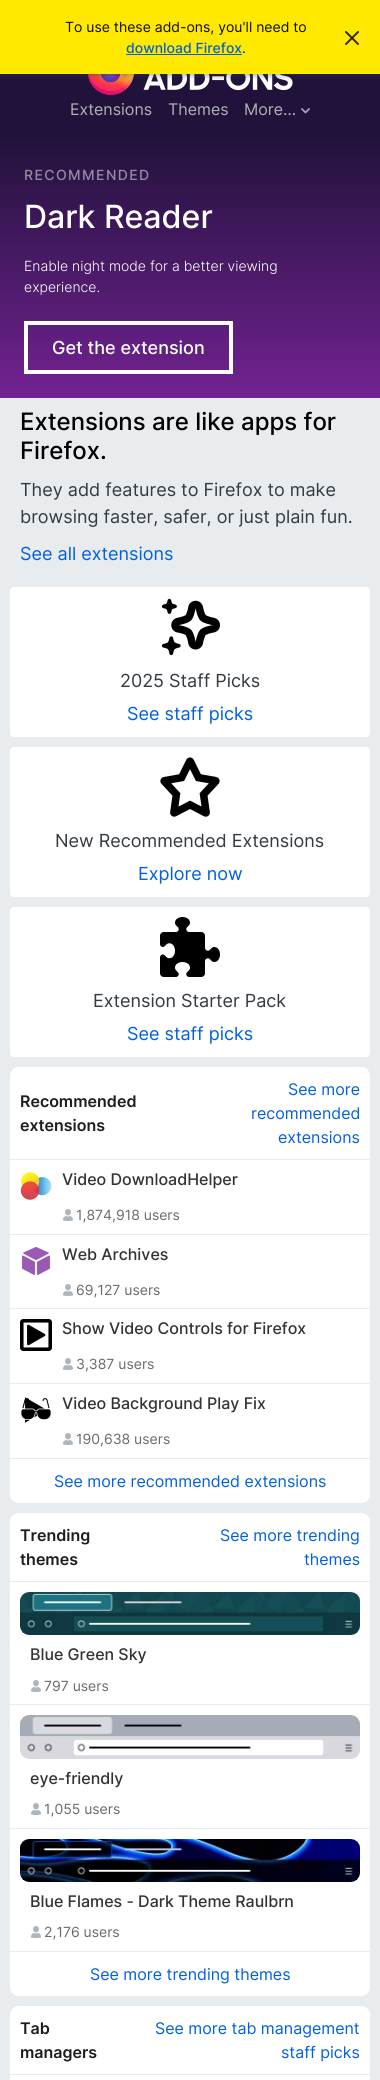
import math
import cairo

surface = cairo.ImageSurface(cairo.FORMAT_RGB24, 380, 2080)
ctx = cairo.Context(surface)
options = cairo.FontOptions()
options.set_hint_metrics(cairo.HINT_METRICS_OFF)
options.set_hint_style(cairo.HINT_STYLE_NONE)
ctx.set_font_options(options)
ctx.set_miter_limit(4)


def set_color(code):
    ctx.set_source_rgb(*(v / 255 for v in bytes.fromhex(code[-6:])))


def draw_text(x, y, s, family, size, color, bold=False, italic=False):
    ctx.select_font_face(family, cairo.FONT_SLANT_ITALIC if italic else cairo.FONT_SLANT_NORMAL, cairo.FONT_WEIGHT_BOLD if bold else cairo.FONT_WEIGHT_NORMAL)
    ctx.set_font_size(size)
    set_color(color)
    ctx.move_to(x, y)
    ctx.show_text(s)


def draw_spaced(x, y, s, letter, word):
    ctx.move_to(x, y)
    for ch in s:
        ctx.show_text(ch)
        ctx.rel_move_to(letter + word * (ch == ' '), 0)


def fill_rect(x, y, w, h, color):
    set_color(color)
    ctx.rectangle(x, y, w, h)
    ctx.fill()


def rounded_rect(x, y, w, h, r):
    ctx.new_sub_path()
    for i, (u, v) in enumerate([(x + w - r, y + h - r), (x + r, y + h - r), (x + r, y + r), (x + w - r, y + r)]):
        ctx.arc(u, v, r, i * math.pi / 2, (i + 1) * math.pi / 2)
    ctx.close_path()


def draw_shadow(x, y, w, h, r, blur, alpha):
    ctx.push_group_with_content(cairo.CONTENT_ALPHA)
    ctx.set_operator(cairo.OPERATOR_SOURCE)
    for i in range(15, -16, -2):
        e = blur * i / 6
        if min(w, h) + 2 * e > 0:
            ctx.set_source_rgba(0, 0, 0, alpha * math.erfc((i - 1) / 8.5) / 2)
            rounded_rect(x - e, y - e, w + 2 * e, h + 2 * e, max(0, min(r + e + blur * .6, min(w, h) / 2 + e)))
            ctx.fill()
    ctx.mask(ctx.pop_group())


def draw_image(path, x, y, w, h):
    ctx.save()
    ctx.set_source_surface(cairo.ImageSurface.create_from_png(path), x, y)
    ctx.rectangle(x, y, w, h)
    ctx.fill()
    ctx.restore()


set_color("#20123a")
ctx.paint()
draw_image("assets/img2.png", 87, 74, 206, 21)
set_color("#343a40")
draw_shadow(0, 1, 380, 74, 0, 3.5, 0.5)
fill_rect(0, 0, 380, 74, "#ffe900")
draw_text(65, 32, "To use these add-ons, you'll need to", "Inter", 14, "#0c0c0d")
draw_text(126, 53, "download Firefox", "Inter Medium", 14, "#0060df")
draw_text(242, 53, ".", "Inter", 14, "#0c0c0d")
fill_rect(126, 54, 116, 1, "#0060df")
draw_image("assets/img1.png", 345, 31, 14, 14)
draw_text(70, 115, "Extensions", "Inter", 16, "#b1b1b3")
draw_text(168, 115, "Themes", "Inter", 16, "#b1b1b3")
draw_text(244, 115, "More…", "Inter", 16, "#b1b1b3")
ctx.new_path()
ctx.move_to(309, 109)
ctx.line_to(305.5, 112.5)
ctx.line_to(302, 109)
set_color("#a6a0b0")
ctx.set_line_width(1.8)
ctx.set_line_cap(cairo.LINE_CAP_ROUND)
ctx.set_line_join(cairo.LINE_JOIN_ROUND)
ctx.stroke()
fill_rect(0, 398, 380, 1682, "#e9ecef")
gradient = cairo.LinearGradient(190, 131, 190, 398)
gradient.add_color_stop_rgba(0, 0.125, 0.071, 0.227, 1)
gradient.add_color_stop_rgba(1, 0.447, 0.133, 0.569, 1)
ctx.set_source(gradient)
ctx.rectangle(0, 139, 380, 259)
ctx.fill()
ctx.select_font_face("Inter Medium")
ctx.set_font_size(14)
set_color("#968aa4")
draw_spaced(24, 180, "RECOMMENDED", 1.4, 0)
draw_text(24, 228, "Dark Reader", "Inter Medium", 32, "#ffffff")
draw_text(24, 271, "Enable night mode for a better viewing", "Inter Light", 14, "#ffffff")
draw_text(24, 292, "experience.", "Inter Light", 14, "#ffffff")
ctx.rectangle(26, 323, 205, 49)
ctx.set_line_width(4)
ctx.set_line_cap(cairo.LINE_CAP_BUTT)
ctx.set_line_join(cairo.LINE_JOIN_MITER)
ctx.stroke()
draw_text(52, 354, "Get the extension", "Inter Medium", 18, "#ffffff")
draw_text(20, 430, "Extensions are like apps for", "Inter Medium", 24, "#000000")
draw_text(20, 459, "Firefox.", "Inter Medium", 24, "#000000")
draw_text(20, 496, "They add features to Firefox to make", "Inter", 18, "#343a40")
draw_text(20, 523, "browsing faster, safer, or just plain fun.", "Inter", 18, "#343a40")
draw_text(20, 560, "See all extensions", "Inter", 18, "#0060df")
set_color("#ffffff")
rounded_rect(10, 587, 360, 150, 4)
ctx.fill()
draw_image("assets/img3.png", 161, 598, 59, 58)
draw_text(120, 687, "2025 Staff Picks", "Inter", 18, "#343a40")
draw_text(127, 720, "See staff picks", "Inter", 18, "#0060df")
set_color("#ffffff")
rounded_rect(10, 747, 360, 150, 4)
ctx.fill()
draw_image("assets/img4.png", 160, 757, 60, 60)
draw_text(55, 847, "New Recommended Extensions", "Inter", 18, "#343a40")
draw_text(138, 880, "Explore now", "Inter", 18, "#0060df")
set_color("#ffffff")
rounded_rect(10, 907, 360, 150, 4)
ctx.fill()
draw_image("assets/img5.png", 160, 917, 60, 60)
draw_text(93, 1007, "Extension Starter Pack", "Inter", 18, "#343a40")
draw_text(127, 1040, "See staff picks", "Inter", 18, "#0060df")
set_color("#ffffff")
ctx.new_path()
ctx.move_to(19, 1067)
ctx.line_to(361, 1067)
ctx.curve_to(366, 1067, 370, 1071, 370, 1076)
ctx.line_to(370, 1159)
ctx.line_to(10, 1159)
ctx.line_to(10, 1076)
ctx.curve_to(10, 1071, 14, 1067, 19, 1067)
ctx.close_path()
ctx.fill()
draw_text(20, 1107, "Recommended", "Inter SemiBold", 16, "#1d1d1d")
draw_text(20, 1131, "extensions", "Inter SemiBold", 16, "#1d1d1d")
draw_text(288, 1095, "See more", "Inter", 16, "#0060df")
draw_text(251, 1119, "recommended", "Inter", 16, "#0060df")
draw_text(278, 1143, "extensions", "Inter", 16, "#0060df")
fill_rect(10, 1160, 360, 74, "#ffffff")
draw_image("assets/img6.png", 20, 1172, 32, 28)
draw_text(62, 1185, "Video DownloadHelper", "Inter Medium", 16, "#333333")
draw_image("assets/img7.png", 63, 1209, 10, 12)
draw_text(76, 1220, "1,874,918 users", "Inter", 14, "#6a6a6a")
fill_rect(10, 1235, 360, 73, "#ffffff")
draw_image("assets/img8.png", 21, 1247, 30, 28)
draw_text(62, 1260, "Web Archives", "Inter Medium", 16, "#333333")
draw_image("assets/img7.png", 63, 1284, 10, 12)
draw_text(76, 1295, "69,127 users", "Inter", 14, "#6a6a6a")
fill_rect(10, 1309, 360, 74, "#ffffff")
draw_image("assets/img9.png", 20, 1319, 32, 32)
draw_text(62, 1334, "Show Video Controls for Firefox", "Inter Medium", 16, "#333333")
draw_image("assets/img7.png", 63, 1358, 10, 12)
draw_text(76, 1369, "3,387 users", "Inter", 14, "#6a6a6a")
fill_rect(10, 1384, 360, 74, "#ffffff")
draw_image("assets/img10.png", 21, 1397, 30, 26)
draw_text(62, 1409, "Video Background Play Fix", "Inter Medium", 16, "#333333")
draw_image("assets/img7.png", 63, 1433, 10, 12)
draw_text(76, 1444, "190,638 users", "Inter", 14, "#6a6a6a")
set_color("#ffffff")
ctx.new_path()
ctx.move_to(10, 1459)
ctx.line_to(370, 1459)
ctx.line_to(370, 1494)
ctx.curve_to(370, 1499, 366, 1503, 361, 1503)
ctx.line_to(19, 1503)
ctx.curve_to(14, 1503, 10, 1499, 10, 1494)
ctx.close_path()
ctx.fill()
draw_text(54, 1487, "See more recommended extensions", "Inter", 16, "#0060df")
set_color("#ffffff")
ctx.new_path()
ctx.move_to(19, 1513)
ctx.line_to(361, 1513)
ctx.curve_to(366, 1513, 370, 1517, 370, 1522)
ctx.line_to(370, 1581)
ctx.line_to(10, 1581)
ctx.line_to(10, 1522)
ctx.curve_to(10, 1517, 14, 1513, 19, 1513)
ctx.close_path()
ctx.fill()
draw_text(20, 1541, "Trending", "Inter SemiBold", 16, "#1d1d1d")
draw_text(20, 1565, "themes", "Inter SemiBold", 16, "#1d1d1d")
draw_text(220, 1541, "See more trending", "Inter", 16, "#0060df")
draw_text(304, 1565, "themes", "Inter", 16, "#0060df")
fill_rect(10, 1582, 360, 122, "#ffffff")
draw_image("assets/img11.png", 20, 1592, 340, 43)
draw_text(30, 1660, "Blue Green Sky", "Inter Medium", 16, "#333333")
draw_image("assets/img7.png", 31, 1680, 10, 12)
draw_text(44, 1691, "797 users", "Inter", 14, "#6a6a6a")
fill_rect(10, 1705, 360, 123, "#ffffff")
draw_image("assets/img12.png", 20, 1715, 340, 44)
draw_text(30, 1784, "eye-friendly", "Inter Medium", 16, "#333333")
draw_image("assets/img7.png", 31, 1803, 10, 12)
draw_text(44, 1814, "1,055 users", "Inter", 14, "#6a6a6a")
fill_rect(10, 1829, 360, 122, "#ffffff")
draw_image("assets/img13.png", 20, 1839, 340, 43)
draw_text(30, 1907, "Blue Flames - Dark Theme Raulbrn", "Inter Medium", 16, "#333333")
draw_image("assets/img7.png", 31, 1926, 10, 12)
draw_text(44, 1937, "2,176 users", "Inter", 14, "#6a6a6a")
set_color("#ffffff")
ctx.new_path()
ctx.move_to(10, 1952)
ctx.line_to(370, 1952)
ctx.line_to(370, 1987)
ctx.curve_to(370, 1992, 366, 1996, 361, 1996)
ctx.line_to(19, 1996)
ctx.curve_to(14, 1996, 10, 1992, 10, 1987)
ctx.close_path()
ctx.fill()
draw_text(90, 1980, "See more trending themes", "Inter", 16, "#0060df")
set_color("#ffffff")
ctx.new_path()
ctx.move_to(19, 2006)
ctx.line_to(361, 2006)
ctx.curve_to(366, 2006, 370, 2010, 370, 2015)
ctx.line_to(370, 2074)
ctx.line_to(10, 2074)
ctx.line_to(10, 2015)
ctx.curve_to(10, 2010, 14, 2006, 19, 2006)
ctx.close_path()
ctx.fill()
draw_text(20, 2034, "Tab", "Inter SemiBold", 16, "#1d1d1d")
draw_text(20, 2058, "managers", "Inter SemiBold", 16, "#1d1d1d")
draw_text(155, 2034, "See more tab management", "Inter", 16, "#0060df")
draw_text(281, 2058, "staff picks", "Inter", 16, "#0060df")
fill_rect(10, 2075, 360, 5, "#ffffff")
surface.write_to_png("output.png")
